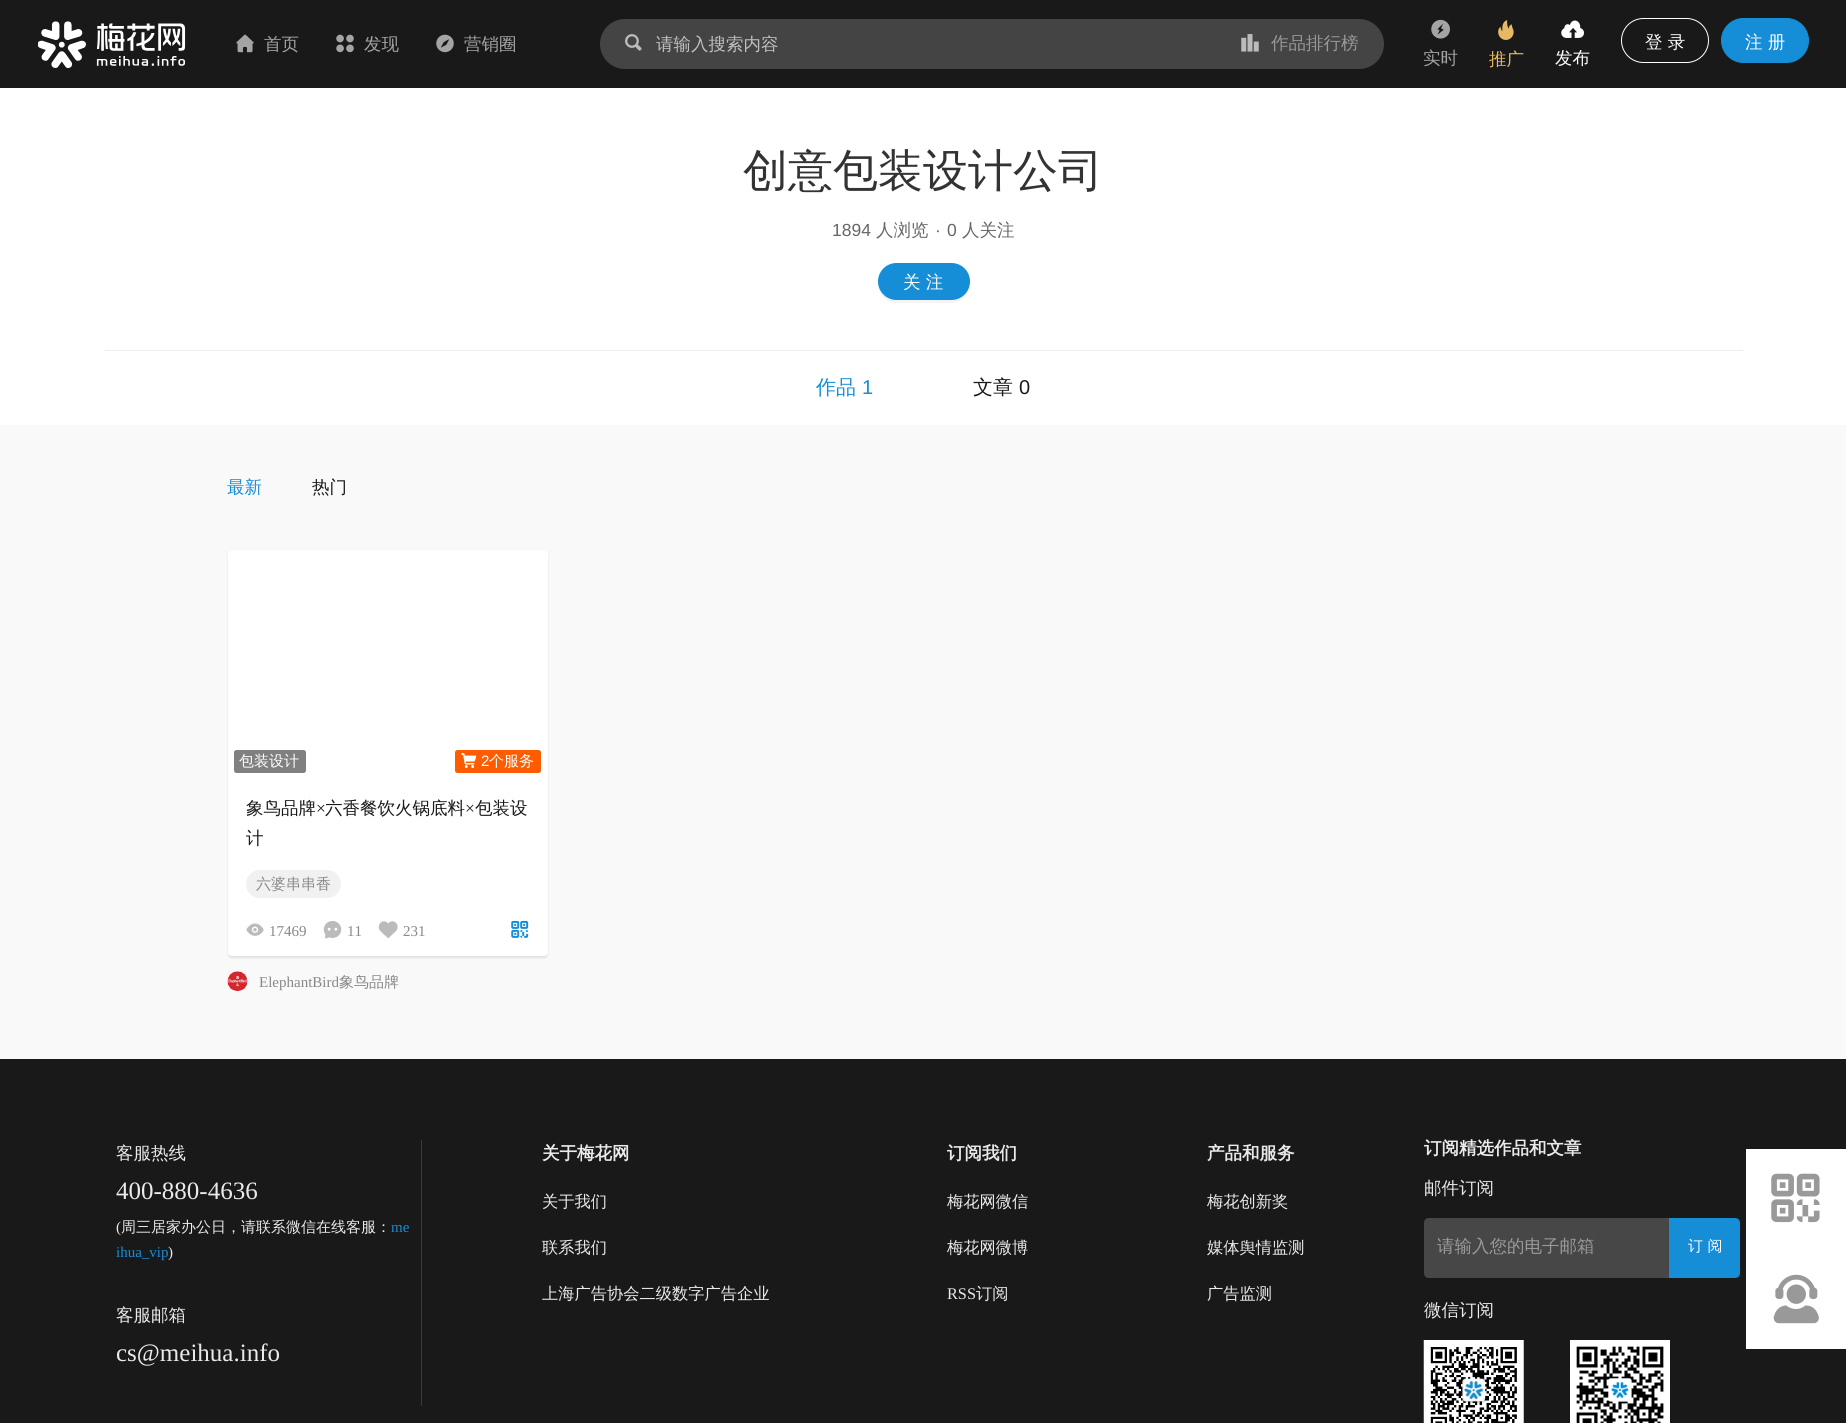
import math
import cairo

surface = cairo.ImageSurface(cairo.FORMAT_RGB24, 1846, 1423)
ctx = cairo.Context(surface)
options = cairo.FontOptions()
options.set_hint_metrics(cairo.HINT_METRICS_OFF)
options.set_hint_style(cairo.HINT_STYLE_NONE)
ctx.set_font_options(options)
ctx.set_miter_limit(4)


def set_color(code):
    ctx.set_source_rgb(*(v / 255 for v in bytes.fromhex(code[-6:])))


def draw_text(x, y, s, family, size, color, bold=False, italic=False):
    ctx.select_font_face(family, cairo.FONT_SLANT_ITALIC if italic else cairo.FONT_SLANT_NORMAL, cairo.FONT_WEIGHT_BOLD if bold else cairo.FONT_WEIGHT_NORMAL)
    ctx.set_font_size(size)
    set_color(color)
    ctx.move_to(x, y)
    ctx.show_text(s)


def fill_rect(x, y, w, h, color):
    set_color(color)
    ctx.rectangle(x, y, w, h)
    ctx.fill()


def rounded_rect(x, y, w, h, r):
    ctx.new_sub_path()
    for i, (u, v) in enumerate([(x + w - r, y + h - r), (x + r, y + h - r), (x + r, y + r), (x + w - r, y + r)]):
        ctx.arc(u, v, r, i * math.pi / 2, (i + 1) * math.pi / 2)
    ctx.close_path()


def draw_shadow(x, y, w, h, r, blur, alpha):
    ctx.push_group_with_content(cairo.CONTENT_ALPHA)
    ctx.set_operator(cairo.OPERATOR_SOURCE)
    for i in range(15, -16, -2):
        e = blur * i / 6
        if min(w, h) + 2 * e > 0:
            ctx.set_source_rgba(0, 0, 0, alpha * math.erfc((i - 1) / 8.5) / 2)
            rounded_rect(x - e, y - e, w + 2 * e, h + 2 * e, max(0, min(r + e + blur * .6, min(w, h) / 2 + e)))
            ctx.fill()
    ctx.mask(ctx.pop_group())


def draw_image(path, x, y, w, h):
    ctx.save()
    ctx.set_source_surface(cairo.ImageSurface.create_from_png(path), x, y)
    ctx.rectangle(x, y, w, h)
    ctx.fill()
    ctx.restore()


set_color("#f9f9f9")
ctx.paint()
fill_rect(0, 0, 1846, 88, "#191919")
draw_image("assets/img1.png", 38, 21, 148, 47)
draw_image("assets/img2.png", 236, 34, 18, 19)
draw_text(264, 50, "首页", "WenQuanYi Zen Hei Medium", 17.5, "#a4a4a4")
draw_image("assets/img3.png", 336, 34, 18, 19)
draw_text(364, 50, "发现", "WenQuanYi Zen Hei Medium", 17.5, "#a4a4a4")
draw_image("assets/img4.png", 436, 34, 18, 19)
draw_text(464, 50, "营销圈", "WenQuanYi Zen Hei Medium", 17.5, "#a4a4a4")
set_color("#303030")
rounded_rect(600, 19, 784, 50, 25)
ctx.fill()
ctx.set_source_rgba(1, 1, 1, 0.1)
rounded_rect(600, 19, 784, 50, 25)
ctx.fill()
draw_image("assets/img5.png", 625, 34, 17, 17)
draw_text(656, 50, "请输入搜索内容", "WenQuanYi Zen Hei Medium", 17.5, "#bfbfbf")
draw_image("assets/img6.png", 1241, 34, 18, 18)
draw_text(1271, 49, "作品排行榜", "WenQuanYi Zen Hei Medium", 17.5, "#999999")
rounded_rect(1621.5, 18.5, 87, 44, 22)
set_color("#ffffff")
ctx.set_line_width(1)
ctx.stroke()
draw_text(1645, 48, "登 录", "WenQuanYi Zen Hei Medium", 17.5, "#ffffff")
set_color("#168dd7")
rounded_rect(1721.5, 18.5, 87, 44, 22)
ctx.fill_preserve()
ctx.stroke()
draw_text(1745, 48, "注 册", "WenQuanYi Zen Hei Medium", 17.5, "#ffffff")
draw_image("assets/img7.png", 1431, 19, 19, 20)
draw_text(1423, 64, "实时", "WenQuanYi Zen Hei Medium", 17.5, "#a4a4a4")
draw_image("assets/img8.png", 1498, 20, 16, 20)
draw_text(1489, 65, "推广", "WenQuanYi Zen Hei Medium", 17.5, "#e7b964")
draw_image("assets/img9.png", 1561, 20, 23, 18)
draw_text(1555, 64, "发布", "WenQuanYi Zen Hei Medium", 17.5, "#ffffff")
fill_rect(0, 88, 1846, 337, "#ffffff")
draw_text(743, 186, "创意包装设计公司", "WenQuanYi Zen Hei Medium", 45, "#333333")
draw_text(832, 236, "1894", "Liberation Sans", 17.5, "#666666")
draw_text(876, 236, "人浏览", "WenQuanYi Zen Hei Medium", 17.5, "#666666")
draw_text(935, 236, "·", "Liberation Sans", 17.5, "#666666")
draw_text(947, 236, "0", "Liberation Sans", 17.5, "#666666")
draw_text(962, 236, "人关注", "WenQuanYi Zen Hei Medium", 17.5, "#666666")
set_color("#f4f4f4")
ctx.new_path()
ctx.move_to(878, 286)
ctx.curve_to(879, 296, 887, 303, 897, 303)
ctx.line_to(951, 303)
ctx.curve_to(961, 303, 970, 294, 970, 284)
ctx.line_to(970, 283)
ctx.curve_to(969, 292, 961, 300, 951, 300)
ctx.line_to(896, 300)
ctx.curve_to(888, 300, 880, 294, 878, 286)
ctx.close_path()
ctx.fill()
set_color("#168dd7")
rounded_rect(878, 263, 92, 37, 18.5)
ctx.fill()
draw_text(903, 288, "关 注", "WenQuanYi Zen Hei Medium", 17.5, "#ffffff")
fill_rect(105, 350, 1638, 1, "#efefef")
draw_text(816, 394, "作品", "WenQuanYi Zen Hei Medium", 20, "#168dd7")
draw_text(862, 394, "1", "Liberation Sans", 20, "#168dd7")
draw_text(973, 394, "文章", "WenQuanYi Zen Hei Medium", 20, "#1a1a1a")
draw_text(1019, 394, "0", "Liberation Sans", 20, "#1a1a1a")
draw_text(227, 493, "最新", "WenQuanYi Zen Hei Medium", 17.5, "#168dd7")
draw_text(312, 493, "热门", "WenQuanYi Zen Hei Medium", 17.5, "#1a1a1a")
set_color("#000000")
draw_shadow(228, 551, 320, 407, 4, 1, 0.1)
set_color("#ffffff")
rounded_rect(228, 550, 320, 406, 4)
ctx.fill()
set_color("#808080")
rounded_rect(234, 750, 72, 23, 2.5)
ctx.fill()
draw_text(239, 766, "包装设计", "WenQuanYi Zen Hei Medium", 15, "#ffffff")
set_color("#ff5b00")
rounded_rect(455, 750, 86, 23, 2.5)
ctx.fill()
draw_image("assets/img10.png", 461, 753, 16, 16)
draw_text(481, 766, "2", "Liberation Sans", 15, "#ffffff")
draw_text(489, 766, "个服务", "WenQuanYi Zen Hei Medium", 15, "#ffffff")
draw_text(246, 814, "象鸟品牌", "WenQuanYi Zen Hei Medium", 17.5, "#1a1a1a")
draw_text(316, 814, "×", "Liberation Serif", 17.5, "#1a1a1a")
draw_text(325, 814, "六香餐饮火锅底料", "WenQuanYi Zen Hei Medium", 17.5, "#1a1a1a")
draw_text(465, 814, "×", "Liberation Serif", 17.5, "#1a1a1a")
draw_text(475, 814, "包装设", "WenQuanYi Zen Hei Medium", 17.5, "#1a1a1a")
draw_text(246, 844, "计", "WenQuanYi Zen Hei Medium", 17.5, "#1a1a1a")
set_color("#f1f1f1")
rounded_rect(246, 870, 95, 28, 14)
ctx.fill()
draw_text(256, 889, "六婆串串香", "WenQuanYi Zen Hei Medium", 15, "#888888")
draw_image("assets/img11.png", 246, 923, 18, 13)
draw_text(269, 936, "17469", "Liberation Serif", 15, "#888888")
draw_image("assets/img12.png", 323, 921, 19, 18)
draw_text(347, 936, "11", "Liberation Serif", 15, "#888888")
draw_image("assets/img13.png", 378, 921, 20, 18)
draw_text(403, 936, "231", "Liberation Serif", 15, "#888888")
draw_image("assets/img14.png", 511, 920, 18, 18)
set_color("#f5f5f5")
ctx.arc(238, 981, 10, 0, 2 * math.pi)
ctx.fill()
draw_image("assets/img15.png", 227, 971, 21, 21)
draw_text(259, 987, "ElephantBird", "Liberation Serif", 15, "#888888")
draw_text(339, 987, "象鸟品牌", "WenQuanYi Zen Hei Medium", 15, "#888888")
fill_rect(0, 1059, 1846, 364, "#191919")
fill_rect(421, 1140, 1, 266, "#3b3b3b")
draw_text(116, 1159, "客服热线", "WenQuanYi Zen Hei Medium", 17.5, "#eaeaea")
draw_text(116, 1199, "400-880-4636", "Liberation Serif", 25, "#eaeaea")
draw_text(116, 1232, "(", "Liberation Serif", 15, "#eaeaea")
draw_text(121, 1232, "周三居家办公日，请联系微信在线客服：", "WenQuanYi Zen Hei Medium", 15, "#eaeaea")
draw_text(391, 1232, "me", "Liberation Serif", 15, "#168dd7")
draw_text(116, 1257, "ihua_vip", "Liberation Serif", 15, "#168dd7")
draw_text(168, 1257, ")", "Liberation Serif", 15, "#eaeaea")
draw_text(116, 1321, "客服邮箱", "WenQuanYi Zen Hei Medium", 17.5, "#eaeaea")
draw_text(116, 1361, "cs@meihua.info", "Liberation Serif", 25, "#eaeaea")
draw_text(542, 1159, "关于梅花网", "WenQuanYi Zen Hei", 17.5, "#eaeaea", bold=True)
draw_text(542, 1207, "关于我们", "WenQuanYi Zen Hei Medium", 16.25, "#eaeaea")
draw_text(542, 1253, "联系我们", "WenQuanYi Zen Hei Medium", 16.25, "#eaeaea")
draw_text(542, 1299, "上海广告协会二级数字广告企业", "WenQuanYi Zen Hei Medium", 16.25, "#eaeaea")
draw_text(947, 1159, "订阅我们", "WenQuanYi Zen Hei", 17.5, "#eaeaea", bold=True)
draw_text(947, 1207, "梅花网微信", "WenQuanYi Zen Hei Medium", 16.25, "#eaeaea")
draw_text(947, 1253, "梅花网微博", "WenQuanYi Zen Hei Medium", 16.25, "#eaeaea")
draw_text(947, 1299, "RSS", "Liberation Serif", 16.25, "#eaeaea")
draw_text(976, 1299, "订阅", "WenQuanYi Zen Hei Medium", 16.25, "#eaeaea")
draw_text(1207, 1159, "产品和服务", "WenQuanYi Zen Hei", 17.5, "#eaeaea", bold=True)
draw_text(1207, 1207, "梅花创新奖", "WenQuanYi Zen Hei Medium", 16.25, "#eaeaea")
draw_text(1207, 1253, "媒体舆情监测", "WenQuanYi Zen Hei Medium", 16.25, "#eaeaea")
draw_text(1207, 1299, "广告监测", "WenQuanYi Zen Hei Medium", 16.25, "#eaeaea")
draw_text(1424, 1154, "订阅精选作品和文章", "WenQuanYi Zen Hei", 17.5, "#eaeaea", bold=True)
draw_text(1424, 1194, "邮件订阅", "WenQuanYi Zen Hei Medium", 17.5, "#eaeaea")
set_color("#474747")
ctx.new_path()
ctx.move_to(1429, 1218)
ctx.line_to(1669, 1218)
ctx.line_to(1669, 1278)
ctx.line_to(1429, 1278)
ctx.curve_to(1426, 1278, 1424, 1276, 1424, 1273)
ctx.line_to(1424, 1223)
ctx.curve_to(1424, 1220, 1426, 1218, 1429, 1218)
ctx.close_path()
ctx.fill()
draw_text(1437, 1252, "请输入您的电子邮箱", "WenQuanYi Zen Hei Medium", 17.5, "#999999")
set_color("#168dd7")
ctx.new_path()
ctx.move_to(1669, 1218)
ctx.line_to(1735, 1218)
ctx.curve_to(1738, 1218, 1740, 1220, 1740, 1223)
ctx.line_to(1740, 1273)
ctx.curve_to(1740, 1276, 1738, 1278, 1735, 1278)
ctx.line_to(1669, 1278)
ctx.close_path()
ctx.fill()
draw_text(1688, 1251, "订 阅", "WenQuanYi Zen Hei Medium", 15, "#ffffff")
draw_text(1424, 1316, "微信订阅", "WenQuanYi Zen Hei Medium", 17.5, "#eaeaea")
draw_image("assets/img16.png", 1423, 1340, 101, 83)
draw_image("assets/img17.png", 1570, 1340, 100, 83)
fill_rect(1746, 1149, 100, 200, "#ffffff")
draw_image("assets/img18.png", 1771, 1173, 49, 50)
draw_image("assets/img19.png", 1773, 1274, 46, 50)
surface.write_to_png("output.png")
